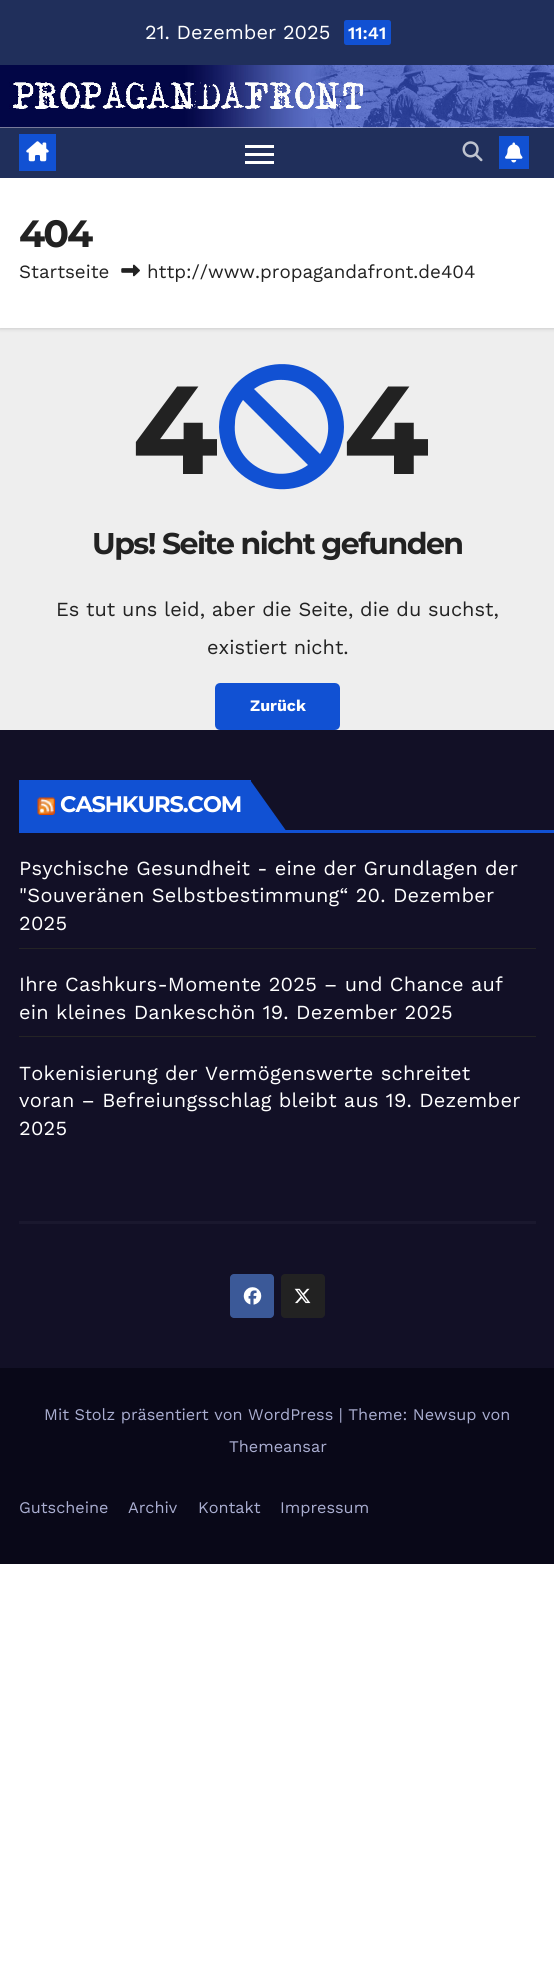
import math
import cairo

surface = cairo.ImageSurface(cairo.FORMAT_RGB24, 554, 1988)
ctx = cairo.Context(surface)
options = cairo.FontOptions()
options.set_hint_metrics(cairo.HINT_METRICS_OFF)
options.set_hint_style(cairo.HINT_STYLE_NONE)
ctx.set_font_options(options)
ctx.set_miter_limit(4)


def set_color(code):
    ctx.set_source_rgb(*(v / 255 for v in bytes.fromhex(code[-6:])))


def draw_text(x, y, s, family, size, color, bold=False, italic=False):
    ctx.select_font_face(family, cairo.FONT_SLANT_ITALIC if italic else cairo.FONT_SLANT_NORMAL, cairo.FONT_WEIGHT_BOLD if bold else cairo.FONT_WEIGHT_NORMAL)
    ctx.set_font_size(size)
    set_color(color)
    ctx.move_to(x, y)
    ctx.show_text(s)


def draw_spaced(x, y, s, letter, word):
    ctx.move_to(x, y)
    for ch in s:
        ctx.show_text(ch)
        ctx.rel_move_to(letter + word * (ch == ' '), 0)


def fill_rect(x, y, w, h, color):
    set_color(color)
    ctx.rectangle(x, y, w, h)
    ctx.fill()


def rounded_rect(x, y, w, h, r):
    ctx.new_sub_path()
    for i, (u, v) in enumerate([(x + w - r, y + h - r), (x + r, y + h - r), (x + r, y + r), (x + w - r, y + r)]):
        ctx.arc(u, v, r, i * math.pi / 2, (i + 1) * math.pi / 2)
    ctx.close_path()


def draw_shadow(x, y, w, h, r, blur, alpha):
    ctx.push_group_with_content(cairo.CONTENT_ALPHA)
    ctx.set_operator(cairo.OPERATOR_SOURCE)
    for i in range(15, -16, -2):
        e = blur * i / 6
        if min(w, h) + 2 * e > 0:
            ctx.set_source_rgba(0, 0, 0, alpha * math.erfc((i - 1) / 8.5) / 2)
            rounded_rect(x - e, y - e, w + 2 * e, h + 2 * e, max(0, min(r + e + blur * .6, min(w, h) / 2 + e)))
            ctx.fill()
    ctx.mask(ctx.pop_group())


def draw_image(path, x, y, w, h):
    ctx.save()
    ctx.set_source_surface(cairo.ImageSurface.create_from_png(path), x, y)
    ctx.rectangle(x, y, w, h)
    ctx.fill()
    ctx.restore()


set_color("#ffffff")
ctx.paint()
fill_rect(0, 127, 554, 603, "#eeeeee")
fill_rect(0, 0, 554, 65, "#202f5b")
draw_text(145, 39, "21. Dezember 2025", "Work Sans", 20, "#ffffff")
set_color("#1151d3")
rounded_rect(344, 20, 47, 25, 2.5)
ctx.fill()
draw_text(348, 39, "11:41", "Work Sans SemiBold", 17.5, "#ffffff")
draw_image("assets/img1.png", 0, 65, 554, 63)
set_color("#000000")
draw_shadow(0, 179, 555, 150, 0, 2, 0.15)
fill_rect(0, 128, 554, 50, "#202f5b")
fill_rect(19, 134, 37, 37, "#1151d3")
draw_image("assets/img2.png", 26, 141, 23, 21)
fill_rect(245, 145, 29, 3, "#ffffff")
fill_rect(245, 153, 29, 3, "#ffffff")
fill_rect(245, 161, 29, 3, "#ffffff")
draw_image("assets/img3.png", 462, 141, 21, 21)
fill_rect(499, 136, 30, 33, "#1151d3")
draw_image("assets/img4.png", 505, 142, 18, 21)
fill_rect(0, 178, 554, 150, "#ffffff")
ctx.select_font_face("Montserrat", cairo.FONT_SLANT_NORMAL, cairo.FONT_WEIGHT_BOLD)
ctx.set_font_size(38)
set_color("#222222")
draw_spaced(19, 247, "404", -2, 0)
draw_text(19, 278, "Startseite", "Work Sans", 18.75, "#222222")
draw_image("assets/img5.png", 121, 264, 19, 13)
draw_text(147, 278, "http://www.propagandafront.de404", "Work Sans", 18.75, "#222222")
ctx.select_font_face("Montserrat", cairo.FONT_SLANT_NORMAL, cairo.FONT_WEIGHT_BOLD)
ctx.set_font_size(125)
draw_spaced(132, 474, "4", -6, 0)
set_color("#1151d3")
ctx.new_path()
ctx.move_to(308, 465)
ctx.line_to(243, 400)
ctx.curve_to(238, 407, 235, 415, 235, 423)
ctx.curve_to(231, 463, 276, 488, 308, 465)
ctx.close_path()
ctx.move_to(320, 454)
ctx.curve_to(342, 422, 317, 377, 277, 380)
ctx.curve_to(269, 381, 261, 384, 254, 389)
ctx.close_path()
ctx.move_to(219, 427)
ctx.curve_to(220, 367, 294, 341, 331, 389)
ctx.curve_to(339, 400, 344, 413, 344, 427)
ctx.curve_to(344, 440, 339, 454, 331, 465)
ctx.curve_to(294, 512, 220, 486, 219, 427)
ctx.close_path()
ctx.fill()
set_color("#222222")
draw_spaced(343, 474, "4", -6, 0)
ctx.set_font_size(30)
draw_spaced(92, 554, "Ups! Seite nicht gefunden", -1.5, 0)
draw_text(56, 616, "Es tut uns leid, aber die Seite, die du suchst,", "Work Sans", 20, "#222222")
draw_text(207, 654, "existiert nicht.", "Work Sans", 20, "#222222")
set_color("#1151d3")
rounded_rect(216.5, 684.5, 122, 44, 3.5)
ctx.fill_preserve()
ctx.set_line_width(3)
ctx.stroke()
draw_text(250, 711, "Zurück", "Work Sans", 16, "#ffffff", bold=True)
fill_rect(0, 730, 554, 638, "#121026")
fill_rect(19, 780, 232, 50, "#1151d3")
draw_image("assets/img6.png", 37, 797, 18, 18)
ctx.select_font_face("Montserrat", cairo.FONT_SLANT_NORMAL, cairo.FONT_WEIGHT_BOLD)
ctx.set_font_size(22.5)
set_color("#ffffff")
draw_spaced(60, 812, "CASHKURS.COM", -1.1, 0)
set_color("#1151d3")
ctx.new_path()
ctx.move_to(250, 780)
ctx.line_to(250, 832)
ctx.line_to(287, 832)
ctx.close_path()
ctx.fill()
fill_rect(19, 830, 535, 3, "#1151d3")
fill_rect(19, 948, 517, 1, "#242425")
ctx.select_font_face("Work Sans")
ctx.set_font_size(20)
set_color("#ffffff")
draw_spaced(19, 875, "Psychische Gesundheit - eine der Grundlagen der", 0.25, 0)
draw_spaced(19, 902, "\"Souveränen Selbstbestimmung“ 20. Dezember", 0.25, 0)
draw_spaced(19, 930, "2025", 0.25, 0)
fill_rect(19, 1036, 517, 1, "#242425")
set_color("#ffffff")
draw_spaced(19, 991, "Ihre Cashkurs-Momente 2025 – und Chance auf", 0.25, 0)
draw_spaced(19, 1019, "ein kleines Dankeschön 19. Dezember 2025", 0.25, 0)
draw_spaced(19, 1080, "Tokenisierung der Vermögenswerte schreitet", 0.25, 0)
draw_spaced(19, 1107, "voran – Befreiungsschlag bleibt aus 19. Dezember", 0.25, 0)
draw_spaced(19, 1135, "2025", 0.25, 0)
fill_rect(19, 1221, 517, 3, "#1a182e")
set_color("#3b5998")
rounded_rect(230, 1274, 44, 44, 4)
ctx.fill()
draw_image("assets/img7.png", 243, 1287, 19, 18)
set_color("#222222")
rounded_rect(281, 1274, 44, 44, 4)
ctx.fill()
draw_image("assets/img8.png", 294, 1288, 17, 16)
fill_rect(0, 1368, 554, 196, "#090818")
draw_text(44, 1420, "Mit Stolz präsentiert von WordPress | Theme: Newsup von", "Work Sans", 16.25, "#aaaed1")
draw_text(229, 1452, "Themeansar", "Work Sans", 16.25, "#aaaed1")
draw_text(19, 1513, "Gutscheine", "Work Sans", 16.25, "#aaaed1")
draw_text(128, 1513, "Archiv", "Work Sans", 16.25, "#aaaed1")
draw_text(198, 1513, "Kontakt", "Work Sans", 16.25, "#aaaed1")
draw_text(280, 1513, "Impressum", "Work Sans", 16.25, "#aaaed1")
surface.write_to_png("output.png")
